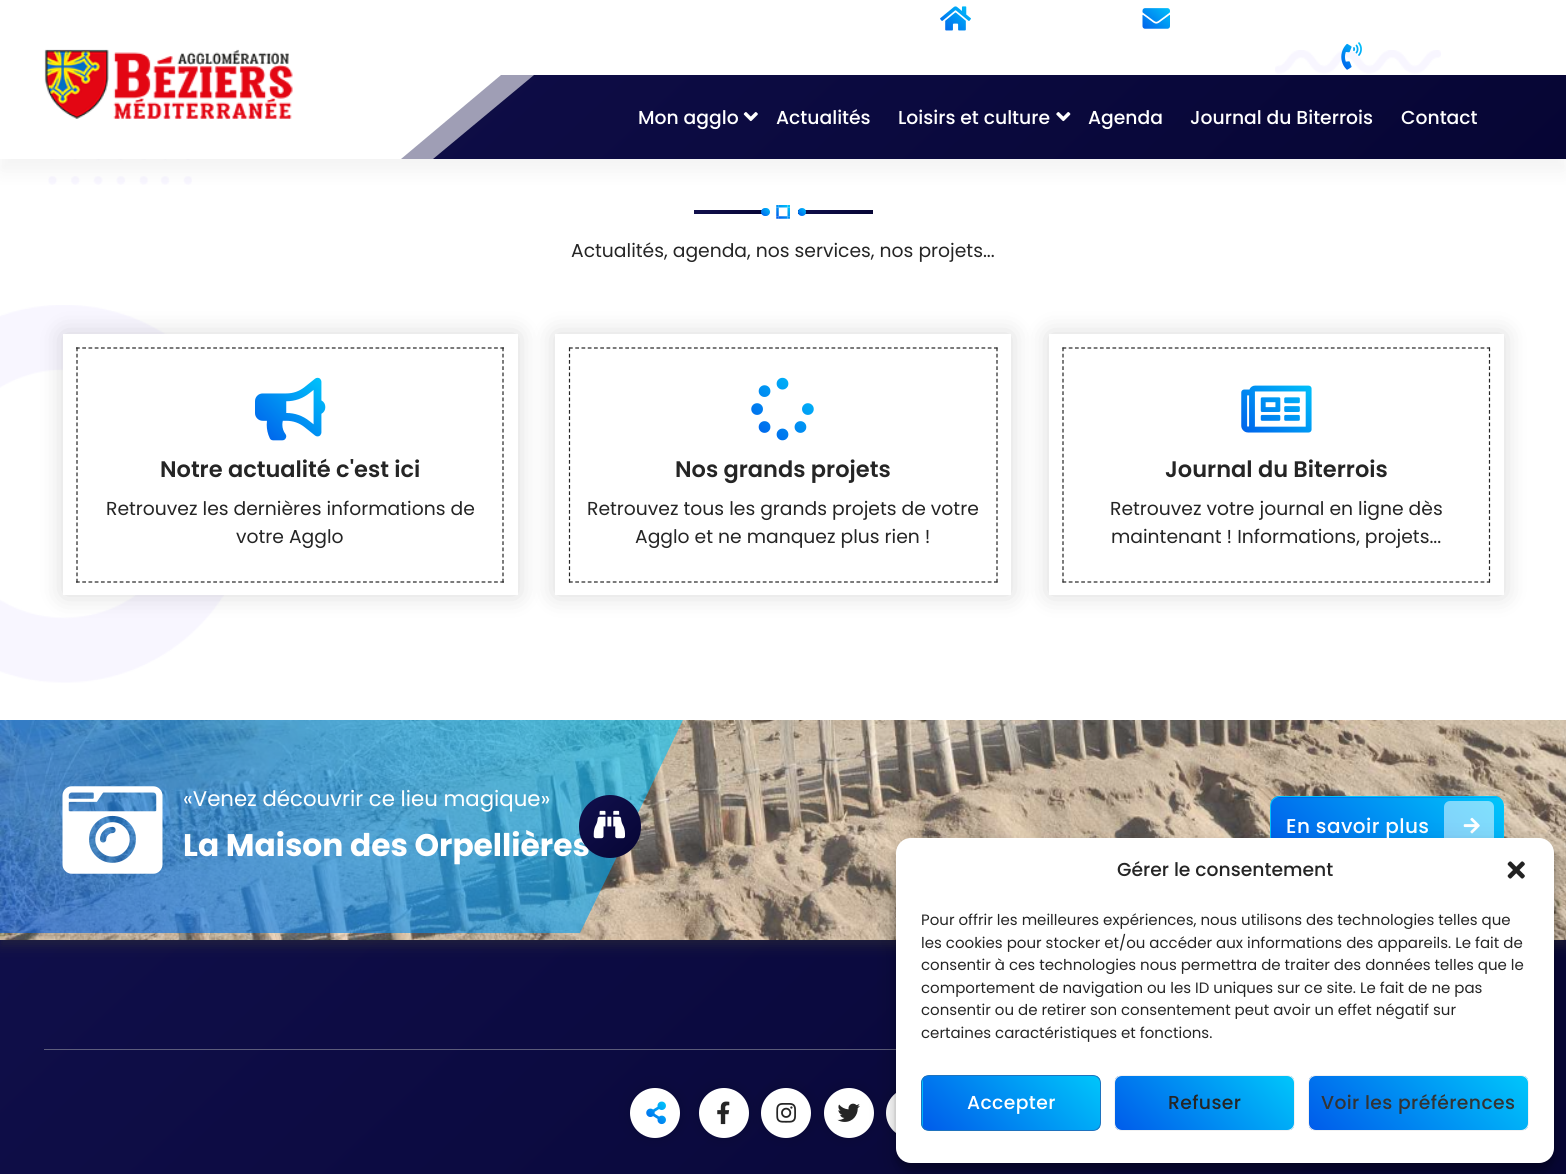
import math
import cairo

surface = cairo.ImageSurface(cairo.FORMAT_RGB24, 1566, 1174)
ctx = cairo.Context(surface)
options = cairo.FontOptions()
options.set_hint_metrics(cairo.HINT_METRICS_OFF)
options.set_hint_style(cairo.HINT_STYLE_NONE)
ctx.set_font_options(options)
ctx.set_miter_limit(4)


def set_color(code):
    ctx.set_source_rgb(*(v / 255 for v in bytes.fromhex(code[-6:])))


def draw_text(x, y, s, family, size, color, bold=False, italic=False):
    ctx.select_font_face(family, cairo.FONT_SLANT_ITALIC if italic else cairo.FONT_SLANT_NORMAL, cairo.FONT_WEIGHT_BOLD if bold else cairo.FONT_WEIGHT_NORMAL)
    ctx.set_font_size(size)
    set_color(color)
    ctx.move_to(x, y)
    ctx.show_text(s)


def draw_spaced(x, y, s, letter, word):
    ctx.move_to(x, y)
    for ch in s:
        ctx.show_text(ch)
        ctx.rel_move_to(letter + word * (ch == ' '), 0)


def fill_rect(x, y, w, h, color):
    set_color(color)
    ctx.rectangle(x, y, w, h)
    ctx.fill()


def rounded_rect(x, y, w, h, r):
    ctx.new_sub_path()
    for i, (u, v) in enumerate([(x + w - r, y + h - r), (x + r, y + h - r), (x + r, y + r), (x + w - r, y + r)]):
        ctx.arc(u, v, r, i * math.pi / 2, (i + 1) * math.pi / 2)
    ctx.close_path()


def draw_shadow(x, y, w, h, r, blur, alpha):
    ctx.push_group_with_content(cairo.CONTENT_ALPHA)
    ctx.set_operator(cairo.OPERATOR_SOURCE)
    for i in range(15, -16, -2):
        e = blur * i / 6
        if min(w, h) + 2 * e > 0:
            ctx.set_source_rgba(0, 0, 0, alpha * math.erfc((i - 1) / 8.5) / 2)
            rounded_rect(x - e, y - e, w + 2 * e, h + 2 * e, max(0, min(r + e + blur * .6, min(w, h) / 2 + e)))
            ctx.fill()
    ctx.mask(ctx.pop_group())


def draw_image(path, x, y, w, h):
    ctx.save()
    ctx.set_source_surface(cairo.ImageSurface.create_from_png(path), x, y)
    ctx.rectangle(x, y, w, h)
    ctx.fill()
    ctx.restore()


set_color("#ffffff")
ctx.paint()
gradient = cairo.LinearGradient(286, 377, 1280, 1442)
gradient.add_color_stop_rgba(0, 0.067, 0.063, 0.302, 1)
gradient.add_color_stop_rgba(1, 0.024, 0.02, 0.204, 1)
ctx.set_source(gradient)
ctx.rectangle(0, 940, 1566, 234)
ctx.fill()
set_color("#333333")
draw_shadow(0, 6, 1566, 940, 0, 6, 0.5)
fill_rect(0, 0, 1566, 720, "#ffffff")
draw_image("assets/img1.png", 940, 6, 31, 25)
draw_image("assets/img2.png", 1142, 8, 28, 21)
draw_image("assets/img7.png", 1275, 50, 166, 24)
draw_image("assets/img3.png", 1341, 42, 21, 28)
draw_image("assets/img8.png", 48, 159, 144, 26)
set_color("#000000")
draw_shadow(0, 88, 1566, 83, 0, 9.5, 0.05)
gradient = cairo.LinearGradient(398, -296, 1168, 530)
gradient.add_color_stop_rgba(0, 0.067, 0.063, 0.302, 1)
gradient.add_color_stop_rgba(1, 0.024, 0.02, 0.204, 1)
ctx.set_source(gradient)
ctx.rectangle(401, 75, 1165, 84)
ctx.fill()
set_color("#ffffff")
ctx.new_path()
ctx.move_to(0, -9)
ctx.line_to(0, 159)
ctx.line_to(401, 159)
ctx.line_to(501, 75)
ctx.line_to(401, -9)
ctx.close_path()
ctx.fill()
ctx.set_source_rgba(1, 1, 1, 0.6)
ctx.new_path()
ctx.move_to(33, 159)
ctx.line_to(33, -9)
ctx.line_to(433, -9)
ctx.line_to(534, 75)
ctx.line_to(433, 159)
ctx.close_path()
ctx.fill()
draw_image("assets/img4.png", 44, 49, 249, 70)
draw_text(638, 124, "Mon agglo", "Poppins Medium", 18.75, "#ffffff")
draw_image("assets/img5.png", 743, 112, 15, 10)
draw_text(776, 124, "Actualités", "Poppins Medium", 18.75, "#ffffff")
draw_text(898, 124, "Loisirs et culture", "Poppins Medium", 18.75, "#ffffff")
draw_image("assets/img6.png", 1056, 112, 15, 10)
draw_text(1088, 124, "Agenda", "Poppins Medium", 18.75, "#ffffff")
draw_text(1190, 124, "Journal du Biterrois", "Poppins Medium", 18.75, "#ffffff")
draw_text(1401, 124, "Contact", "Poppins Medium", 18.75, "#ffffff")
gradient = cairo.LinearGradient(713, 192, 750, 232)
gradient.add_color_stop_rgba(0, 0.067, 0.063, 0.302, 1)
gradient.add_color_stop_rgba(1, 0.024, 0.02, 0.204, 1)
ctx.set_source(gradient)
ctx.rectangle(694, 210, 75, 4)
ctx.fill()
gradient = cairo.LinearGradient(770, 207, 761, 216)
gradient.add_color_stop_rgba(0, 0, 0.776, 0.984, 1)
gradient.add_color_stop_rgba(1, 0, 0.357, 0.918, 1)
ctx.set_source(gradient)
rounded_rect(761, 208, 9, 8, 4)
ctx.fill()
draw_image("assets/img9.png", 776, 205, 14, 14)
gradient = cairo.LinearGradient(817, 192, 853, 232)
gradient.add_color_stop_rgba(0, 0.067, 0.063, 0.302, 1)
gradient.add_color_stop_rgba(1, 0.024, 0.02, 0.204, 1)
ctx.set_source(gradient)
ctx.rectangle(798, 210, 75, 4)
ctx.fill()
gradient = cairo.LinearGradient(806, 207, 798, 216)
gradient.add_color_stop_rgba(0, 0, 0.776, 0.984, 1)
gradient.add_color_stop_rgba(1, 0, 0.357, 0.918, 1)
ctx.set_source(gradient)
ctx.arc(802, 212, 4, 0, 2 * math.pi)
ctx.fill()
draw_text(571, 257, "Actualités, agenda, nos services, nos projets...", "Poppins", 18.75, "#252525")
draw_image("assets/img13.png", 0, 305, 225, 378)
set_color("#000000")
draw_shadow(63, 334, 455, 261, 0, 12.5, 0.15)
fill_rect(63, 334, 455, 261, "#ffffff")
ctx.new_path()
ctx.move_to(76, 348)
ctx.line_to(504, 348)
set_color("#252525")
ctx.set_line_width(1.2)
ctx.set_dash([3.75, 2.49])
ctx.stroke()
ctx.new_path()
ctx.move_to(503, 347.5)
ctx.line_to(503, 582.5)
ctx.set_dash([3.75, 2.5])
ctx.stroke()
ctx.new_path()
ctx.move_to(76, 582)
ctx.line_to(504, 582)
ctx.set_dash([3.75, 2.49])
ctx.stroke()
ctx.new_path()
ctx.move_to(77, 347.5)
ctx.line_to(77, 582.5)
ctx.set_dash([3.75, 2.5])
ctx.stroke()
draw_image("assets/img10.png", 255, 377, 71, 64)
draw_text(160, 477, "Notre actualité c'est ici", "Poppins SemiBold", 22.5, "#252525")
draw_text(106, 515, "Retrouvez les dernières informations de", "Poppins", 18.75, "#252525")
draw_text(236, 543, "votre Agglo", "Poppins", 18.75, "#252525")
ctx.save()
ctx.set_fill_rule(cairo.FILL_RULE_EVEN_ODD)
ctx.new_path()
ctx.move_to(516, 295)
ctx.line_to(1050, 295)
ctx.line_to(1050, 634)
ctx.line_to(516, 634)
ctx.close_path()
ctx.move_to(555, 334)
ctx.line_to(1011, 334)
ctx.line_to(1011, 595)
ctx.line_to(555, 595)
ctx.close_path()
ctx.clip()
set_color("#000000")
draw_shadow(555, 334, 456, 261, 0, 12.5, 0.15)
ctx.restore()
ctx.new_path()
ctx.move_to(569, 348)
ctx.line_to(997.5, 348)
ctx.stroke()
ctx.new_path()
ctx.move_to(997, 347.5)
ctx.line_to(997, 582.5)
ctx.stroke()
ctx.new_path()
ctx.move_to(569, 582)
ctx.line_to(997.5, 582)
ctx.stroke()
ctx.new_path()
ctx.move_to(569.5, 347.5)
ctx.line_to(569.5, 582.5)
ctx.stroke()
draw_image("assets/img11.png", 751, 377, 63, 64)
draw_text(675, 477, "Nos grands projets", "Poppins SemiBold", 22.5, "#252525")
draw_text(587, 515, "Retrouvez tous les grands projets de votre", "Poppins", 18.75, "#252525")
draw_text(635, 543, "Agglo et ne manquez plus rien !", "Poppins", 18.75, "#252525")
set_color("#000000")
draw_shadow(1049, 334, 455, 261, 0, 12.5, 0.15)
fill_rect(1049, 334, 455, 261, "#ffffff")
ctx.new_path()
ctx.move_to(1062.5, 348)
ctx.line_to(1490, 348)
set_color("#252525")
ctx.set_dash([3.75, 2.49])
ctx.stroke()
ctx.new_path()
ctx.move_to(1489.5, 347.5)
ctx.line_to(1489.5, 582.5)
ctx.set_dash([3.75, 2.5])
ctx.stroke()
ctx.new_path()
ctx.move_to(1062.5, 582)
ctx.line_to(1490, 582)
ctx.set_dash([3.75, 2.49])
ctx.stroke()
ctx.new_path()
ctx.move_to(1063, 347.5)
ctx.line_to(1063, 582.5)
ctx.set_dash([3.75, 2.5])
ctx.stroke()
draw_image("assets/img12.png", 1241, 385, 71, 48)
draw_text(1165, 477, "Journal du Biterrois", "Poppins SemiBold", 22.5, "#252525")
draw_text(1110, 515, "Retrouvez votre journal en ligne dès", "Poppins", 18.75, "#252525")
draw_text(1111, 543, "maintenant ! Informations, projets...", "Poppins", 18.75, "#252525")
draw_image("assets/img14.png", 0, 720, 1566, 220)
draw_image("assets/img15.png", 62, 786, 101, 88)
draw_text(183, 806, "«Venez découvrir ce lieu magique»", "Poppins", 21.25, "#ffffff")
draw_text(183, 856, "La Maison des Orpellières", "Poppins", 31.25, "#ffffff", bold=True)
gradient = cairo.LinearGradient(580, 794, 640, 859)
gradient.add_color_stop_rgba(0, 0.067, 0.063, 0.302, 1)
gradient.add_color_stop_rgba(1, 0.024, 0.02, 0.204, 1)
ctx.set_source(gradient)
rounded_rect(579, 795, 62, 63, 31)
ctx.fill()
draw_image("assets/img16.png", 593, 810, 32, 29)
ctx.save()
rounded_rect(1270, 796, 234, 60, 10)
ctx.clip()
gradient = cairo.LinearGradient(1455, 696, 1319, 842)
gradient.add_color_stop_rgba(0, 0, 0.776, 0.984, 1)
gradient.add_color_stop_rgba(1, 0, 0.357, 0.918, 1)
ctx.set_source(gradient)
ctx.rectangle(1271, 796, 232, 2)
ctx.fill()
gradient = cairo.LinearGradient(1455, 753, 1319, 899)
gradient.add_color_stop_rgba(0, 0, 0.776, 0.984, 1)
gradient.add_color_stop_rgba(1, 0, 0.357, 0.918, 1)
ctx.set_source(gradient)
ctx.rectangle(1271, 798, 232, 40)
ctx.fill()
ctx.restore()
rounded_rect(1270.5, 796.5, 233, 59, 9.5)
set_color("#00c6fb")
ctx.set_line_width(1)
ctx.set_dash([])
ctx.stroke()
ctx.select_font_face("Poppins Medium")
ctx.set_font_size(20)
set_color("#ffffff")
draw_spaced(1286, 833, "En savoir plus", 0.4, 0)
ctx.set_source_rgba(1, 1, 1, 0.5)
rounded_rect(1444, 801, 50, 50, 6)
ctx.fill()
draw_image("assets/img17.png", 1463, 817, 17, 17)
gradient = cairo.LinearGradient(286, 377, 1280, 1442)
gradient.add_color_stop_rgba(0, 0.369, 0.369, 0.498, 1)
gradient.add_color_stop_rgba(1, 0.345, 0.345, 0.447, 1)
ctx.set_source(gradient)
ctx.rectangle(44, 1049, 852, 1)
ctx.fill()
set_color("#000000")
draw_shadow(633, 1090, 45, 45, 22.5, 8, 0.2)
set_color("#ffffff")
ctx.arc(655, 1113, 25, 0, 2 * math.pi)
ctx.fill()
draw_image("assets/img18.png", 646, 1101, 20, 24)
set_color("#000000")
draw_shadow(701, 1090, 45, 45, 22.5, 8, 0.2)
set_color("#ffffff")
ctx.arc(724, 1113, 25, 0, 2 * math.pi)
ctx.fill()
draw_image("assets/img19.png", 717, 1101, 13, 24)
set_color("#000000")
draw_shadow(764, 1090, 45, 45, 22.5, 8, 0.2)
set_color("#ffffff")
ctx.arc(786, 1113, 25, 0, 2 * math.pi)
ctx.fill()
draw_image("assets/img20.png", 776, 1103, 20, 20)
set_color("#000000")
draw_shadow(826, 1090, 45, 45, 22.5, 8, 0.2)
set_color("#ffffff")
ctx.arc(849, 1113, 25, 0, 2 * math.pi)
ctx.fill()
draw_image("assets/img21.png", 837, 1103, 23, 19)
set_color("#000000")
draw_shadow(889, 1090, 45, 45, 22.5, 8, 0.2)
set_color("#ffffff")
ctx.arc(911, 1113, 25, 0, 2 * math.pi)
ctx.fill()
set_color("#000000")
draw_shadow(896, 845, 658, 325, 15, 4, 0.23)
draw_shadow(896, 850, 658, 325, 15, 12.5, 0.19)
set_color("#ffffff")
rounded_rect(896, 838, 658, 325, 15)
ctx.fill()
draw_text(1117, 876, "Gérer le consentement", "Poppins Medium", 18.75, "#252525")
draw_image("assets/img22.png", 1507, 861, 18, 18)
draw_text(921, 925, "Pour offrir les meilleures expériences, nous utilisons des technologies telles que", "Poppins", 15, "#252525")
draw_text(921, 948, "les cookies pour stocker et/ou accéder aux informations des appareils. Le fait de", "Poppins", 15, "#252525")
draw_text(921, 970, "consentir à ces technologies nous permettra de traiter des données telles que le", "Poppins", 15, "#252525")
draw_text(921, 993, "comportement de navigation ou les ID uniques sur ce site. Le fait de ne pas", "Poppins", 15, "#252525")
draw_text(921, 1015, "consentir ou de retirer son consentement peut avoir un effet négatif sur", "Poppins", 15, "#252525")
draw_text(921, 1038, "certaines caractéristiques et fonctions.", "Poppins", 15, "#252525")
ctx.save()
rounded_rect(921, 1075, 180, 56, 8)
ctx.clip()
gradient = cairo.LinearGradient(888, 1044, 779, 1162)
gradient.add_color_stop_rgba(0, 0, 0.776, 0.984, 1)
gradient.add_color_stop_rgba(1, 0, 0.357, 0.918, 1)
ctx.set_source(gradient)
ctx.rectangle(921, 1076, 2, 54)
ctx.fill()
gradient = cairo.LinearGradient(1066, 1044, 957, 1162)
gradient.add_color_stop_rgba(0, 0, 0.776, 0.984, 1)
gradient.add_color_stop_rgba(1, 0, 0.357, 0.918, 1)
ctx.set_source(gradient)
ctx.rectangle(923, 1076, 177, 54)
ctx.fill()
ctx.restore()
rounded_rect(921.5, 1075.5, 179, 55, 7.5)
set_color("#1e73be")
ctx.stroke()
ctx.select_font_face("Poppins Medium")
ctx.set_font_size(18.75)
set_color("#ffffff")
draw_spaced(967, 1109, "Accepter", 0.4, 0)
ctx.save()
rounded_rect(1114, 1075, 181, 56, 8)
ctx.clip()
gradient = cairo.LinearGradient(1259, 1044, 1149, 1162)
gradient.add_color_stop_rgba(0, 0, 0.776, 0.984, 1)
gradient.add_color_stop_rgba(1, 0, 0.357, 0.918, 1)
ctx.set_source(gradient)
ctx.rectangle(1115, 1076, 179, 54)
ctx.fill()
ctx.restore()
rounded_rect(1114.5, 1075.5, 180, 55, 7.5)
set_color("#f2f2f2")
ctx.stroke()
set_color("#252525")
draw_spaced(1168, 1109, "Refuser", 0.4, 0)
ctx.save()
rounded_rect(1308, 1075, 221, 56, 8)
ctx.clip()
gradient = cairo.LinearGradient(1482, 1034, 1354, 1172)
gradient.add_color_stop_rgba(0, 0, 0.776, 0.984, 1)
gradient.add_color_stop_rgba(1, 0, 0.357, 0.918, 1)
ctx.set_source(gradient)
ctx.rectangle(1309, 1076, 219, 54)
ctx.fill()
ctx.restore()
rounded_rect(1308.5, 1075.5, 220, 55, 7.5)
set_color("#f2f2f2")
ctx.stroke()
set_color("#333333")
draw_spaced(1321, 1109, "Voir les préférences", 0.4, 0)
surface.write_to_png("output.png")
